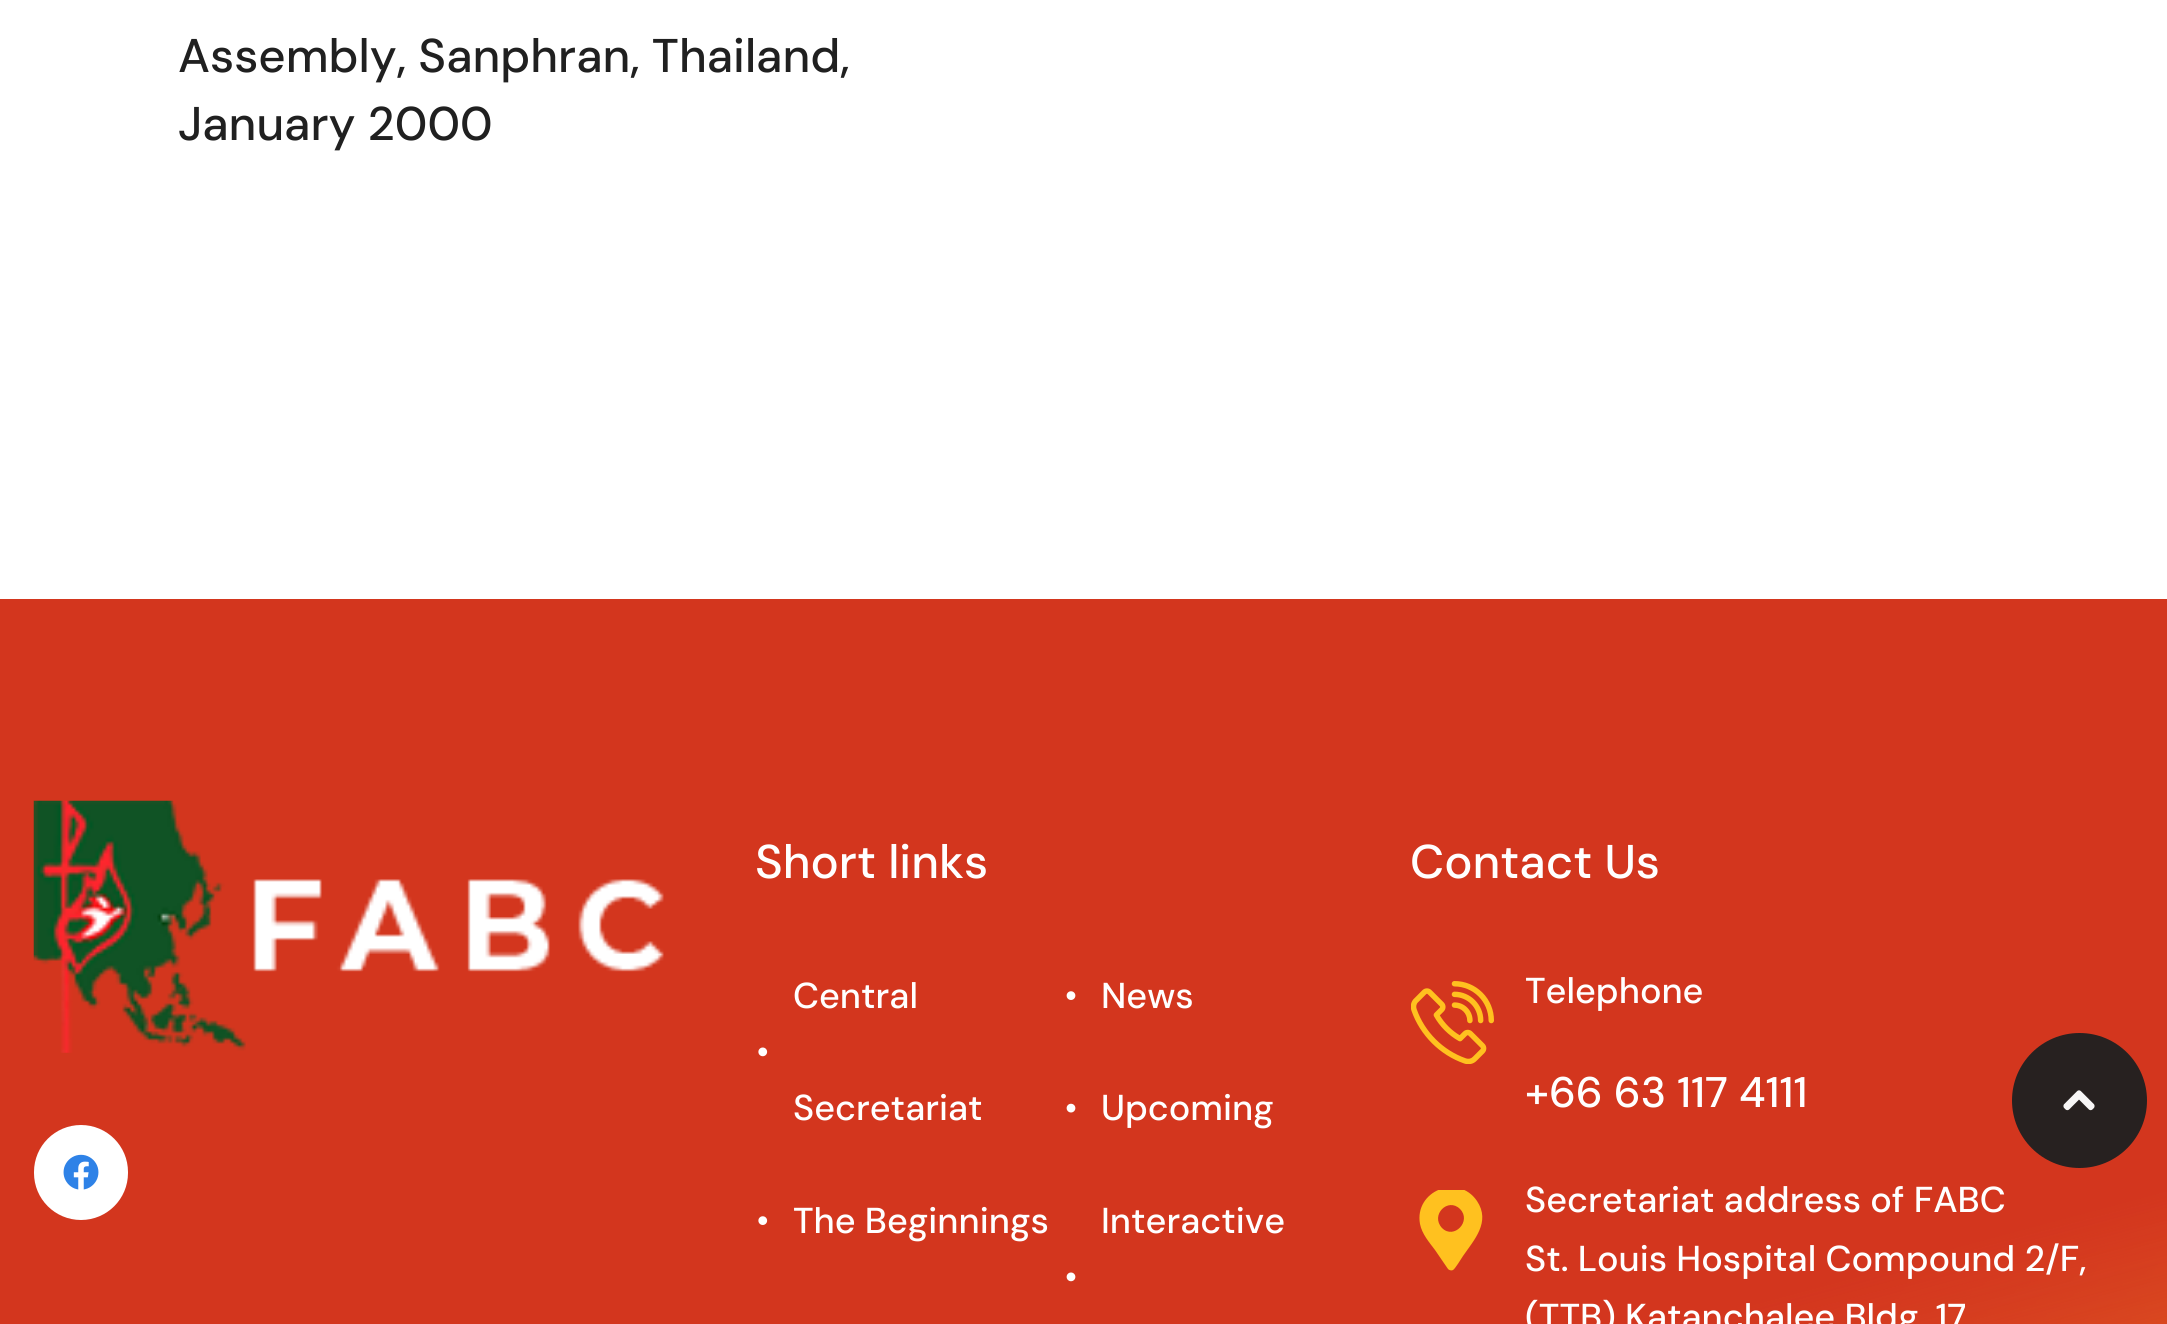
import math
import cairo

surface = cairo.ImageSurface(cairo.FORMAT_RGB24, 2167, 1324)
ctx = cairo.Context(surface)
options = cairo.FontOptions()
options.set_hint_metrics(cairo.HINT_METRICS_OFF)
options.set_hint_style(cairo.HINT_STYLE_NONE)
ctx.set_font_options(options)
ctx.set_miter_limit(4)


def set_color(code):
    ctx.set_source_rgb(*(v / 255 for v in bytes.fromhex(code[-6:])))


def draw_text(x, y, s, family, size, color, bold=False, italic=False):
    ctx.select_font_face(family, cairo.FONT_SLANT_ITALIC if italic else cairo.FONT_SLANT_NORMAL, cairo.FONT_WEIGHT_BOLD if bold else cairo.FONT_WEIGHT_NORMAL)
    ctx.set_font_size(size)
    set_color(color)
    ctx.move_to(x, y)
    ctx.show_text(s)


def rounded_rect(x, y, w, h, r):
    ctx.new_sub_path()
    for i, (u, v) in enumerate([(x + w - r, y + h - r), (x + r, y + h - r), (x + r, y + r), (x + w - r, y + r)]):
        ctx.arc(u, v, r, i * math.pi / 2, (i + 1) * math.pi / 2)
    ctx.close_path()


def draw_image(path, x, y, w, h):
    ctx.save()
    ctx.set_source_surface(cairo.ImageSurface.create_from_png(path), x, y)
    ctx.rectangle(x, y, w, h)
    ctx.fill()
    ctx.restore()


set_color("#ffffff")
ctx.paint()
draw_text(178, 72, "Assembly, Sanphran, Thailand,", "DM Sans Medium", 47.25, "#202020")
draw_text(178, 140, "January 2000", "DM Sans Medium", 47.25, "#202020")
gradient = cairo.LinearGradient(-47, 691, 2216, 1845)
gradient.add_color_stop_rgba(0.72, 0.949, 0.408, 0.216, 1)
gradient.add_color_stop_rgba(0.99, 1, 0.757, 0.122, 1)
ctx.set_source(gradient)
ctx.rectangle(1685, 1195, 482, 129)
ctx.fill()
gradient = cairo.LinearGradient(845, 372, 1324, 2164)
gradient.add_color_stop_rgba(0.61, 0.827, 0.212, 0.118, 1)
gradient.add_color_stop_rgba(0.93, 0.827, 0.212, 0.118, 0.25)
ctx.set_source(gradient)
ctx.rectangle(0, 599, 2167, 725)
ctx.fill()
draw_image("assets/img1.png", 33, 800, 631, 253)
set_color("#ffffff")
rounded_rect(34, 1125, 94, 95, 47)
ctx.fill()
draw_image("assets/img2.png", 63, 1154, 36, 36)
draw_text(755, 878, "Short links", "DM Sans Medium", 47.25, "#ffffff")
draw_image("assets/img3.png", 758, 1047, 10, 10)
draw_text(793, 1008, "Central", "DM Sans Medium", 36, "#ffffff")
draw_text(793, 1120, "Secretariat", "DM Sans Medium", 36, "#ffffff")
draw_image("assets/img4.png", 758, 1216, 10, 9)
draw_text(793, 1233, "The Beginnings", "DM Sans Medium", 36, "#ffffff")
draw_image("assets/img5.png", 1066, 991, 10, 9)
draw_text(1101, 1008, "News", "DM Sans Medium", 36, "#ffffff")
draw_image("assets/img6.png", 1066, 1103, 10, 10)
draw_text(1101, 1120, "Upcoming", "DM Sans Medium", 36, "#ffffff")
draw_text(1101, 1233, "Interactive", "DM Sans Medium", 36, "#ffffff")
draw_image("assets/img7.png", 1066, 1272, 10, 10)
draw_text(1410, 878, "Contact Us", "DM Sans Medium", 47.25, "#ffffff")
draw_image("assets/img8.png", 1411, 981, 83, 83)
draw_text(1525, 1003, "Telephone", "DM Sans Medium", 36, "#ffffff")
draw_text(1525, 1107, "+66 63 117 4111", "DM Sans Medium", 42.75, "#ffffff")
ctx.save()
ctx.rectangle(1411, 1190, 83, 84)
ctx.clip()
set_color("#ffc11f")
ctx.new_path()
ctx.move_to(1448, 1269)
ctx.line_to(1435, 1250)
ctx.curve_to(1429, 1242, 1422, 1234, 1420, 1224)
ctx.curve_to(1414, 1191, 1458, 1173, 1477, 1201)
ctx.curve_to(1491, 1222, 1474, 1240, 1463, 1256)
ctx.curve_to(1461, 1259, 1455, 1269, 1453, 1270)
ctx.curve_to(1451, 1271, 1449, 1270, 1448, 1269)
ctx.close_path()
ctx.move_to(1442, 1228)
ctx.curve_to(1454, 1240, 1472, 1221, 1460, 1209)
ctx.curve_to(1448, 1197, 1430, 1215, 1442, 1228)
ctx.close_path()
ctx.fill()
ctx.restore()
draw_text(1525, 1212, "Secretariat address of FABC", "DM Sans Medium", 36, "#ffffff")
draw_text(1525, 1271, "St. Louis Hospital Compound 2/F,", "DM Sans Medium", 36, "#ffffff")
draw_text(1525, 1329, "(TTB) Katanchalee Bldg. 17", "DM Sans Medium", 36, "#ffffff")
set_color("#272120")
ctx.new_path()
ctx.arc(2079.5, 1100.5, 67.5, 0, 2 * math.pi)
ctx.fill()
draw_image("assets/img9.png", 2063, 1090, 32, 21)
surface.write_to_png("output.png")
